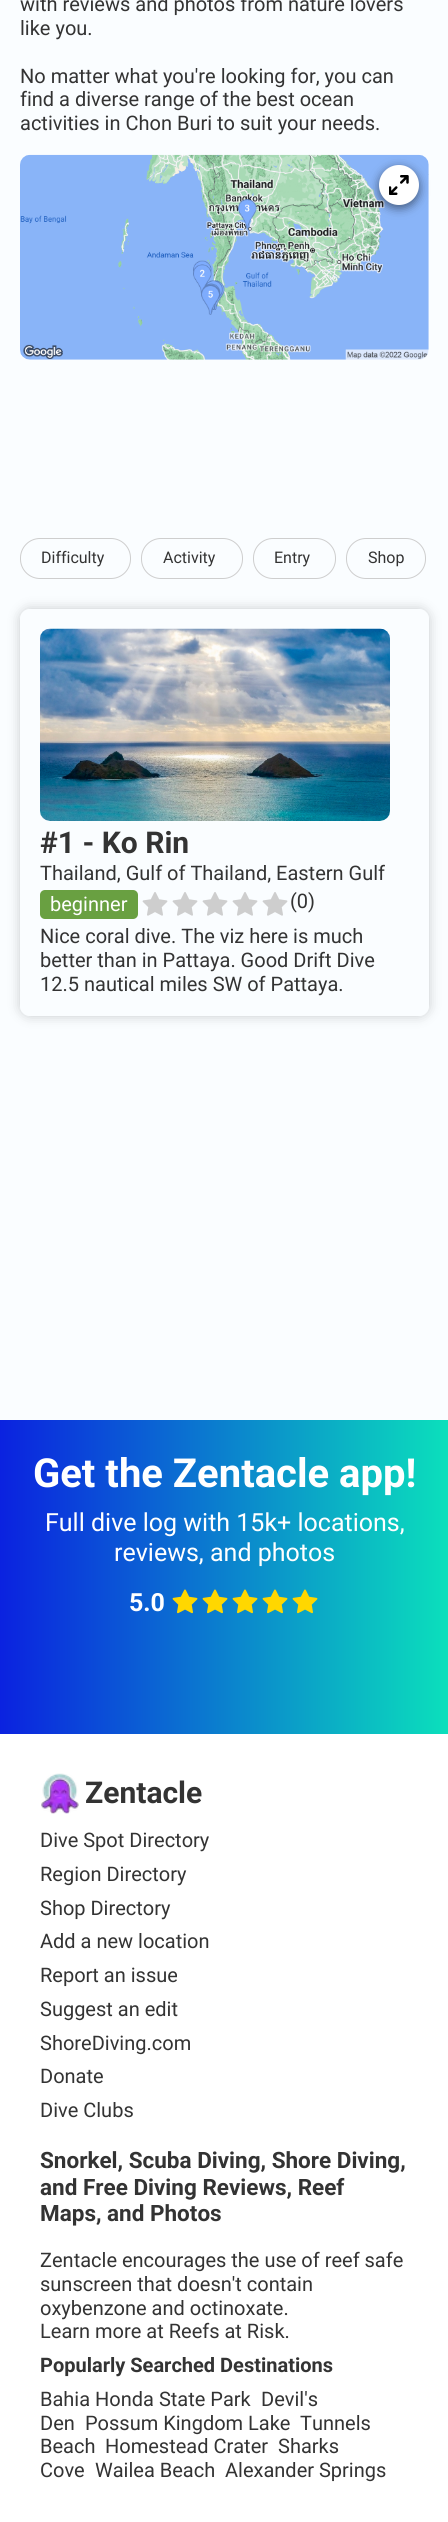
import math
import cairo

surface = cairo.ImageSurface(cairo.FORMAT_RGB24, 448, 2522)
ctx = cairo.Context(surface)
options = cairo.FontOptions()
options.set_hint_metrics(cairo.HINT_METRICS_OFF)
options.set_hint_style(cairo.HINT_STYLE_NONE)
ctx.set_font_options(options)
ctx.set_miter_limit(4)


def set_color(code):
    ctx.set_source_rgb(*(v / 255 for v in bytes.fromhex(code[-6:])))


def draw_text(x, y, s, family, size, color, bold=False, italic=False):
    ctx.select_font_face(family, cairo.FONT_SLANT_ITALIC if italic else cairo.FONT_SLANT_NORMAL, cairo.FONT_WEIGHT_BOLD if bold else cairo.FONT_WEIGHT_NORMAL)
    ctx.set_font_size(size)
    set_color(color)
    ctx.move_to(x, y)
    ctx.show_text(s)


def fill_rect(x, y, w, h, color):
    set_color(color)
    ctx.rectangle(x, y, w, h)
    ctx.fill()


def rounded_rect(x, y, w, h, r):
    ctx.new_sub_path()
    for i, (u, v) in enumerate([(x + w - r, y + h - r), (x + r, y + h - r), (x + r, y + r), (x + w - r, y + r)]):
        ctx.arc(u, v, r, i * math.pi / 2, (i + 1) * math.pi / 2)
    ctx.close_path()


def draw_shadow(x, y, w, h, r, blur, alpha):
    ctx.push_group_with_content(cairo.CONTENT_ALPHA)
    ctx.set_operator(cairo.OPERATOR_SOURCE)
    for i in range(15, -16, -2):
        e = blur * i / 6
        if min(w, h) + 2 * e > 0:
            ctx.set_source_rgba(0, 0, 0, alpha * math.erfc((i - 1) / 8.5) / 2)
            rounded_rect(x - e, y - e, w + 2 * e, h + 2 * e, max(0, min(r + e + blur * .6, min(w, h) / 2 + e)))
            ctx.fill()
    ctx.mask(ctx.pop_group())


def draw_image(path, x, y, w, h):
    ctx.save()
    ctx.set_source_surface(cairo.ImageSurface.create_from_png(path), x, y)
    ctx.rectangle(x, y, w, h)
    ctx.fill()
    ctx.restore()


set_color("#fafdff")
ctx.paint()
draw_text(20, 11, "with reviews and photos from nature lovers", "Roboto", 20, "#333333")
draw_text(20, 35, "like you.", "Roboto", 20, "#333333")
draw_text(20, 83, "No matter what you're looking for, you can", "Roboto", 20, "#333333")
draw_text(20, 106, "find a diverse range of the best ocean", "Roboto", 20, "#333333")
draw_text(20, 130, "activities in Chon Buri to suit your needs.", "Roboto", 20, "#333333")
draw_image("assets/img2.png", 20, 154, 409, 206)
set_color("#000000")
draw_shadow(379, 168, 40, 40, 20, 5, 0.5)
set_color("#ffffff")
ctx.arc(399, 185, 20, 0, 2 * math.pi)
ctx.fill()
draw_image("assets/img1.png", 389, 175, 20, 20)
rounded_rect(20.5, 538.5, 110, 40, 19.5)
set_color("#cecece")
ctx.set_line_width(1)
ctx.stroke()
draw_text(41, 563, "Difficulty", "Roboto", 16, "#333333")
rounded_rect(141.5, 538.5, 101, 40, 19.5)
set_color("#cecece")
ctx.stroke()
draw_text(163, 563, "Activity", "Roboto", 16, "#333333")
rounded_rect(253.5, 538.5, 82, 40, 19.5)
set_color("#cecece")
ctx.stroke()
draw_text(274, 563, "Entry", "Roboto", 16, "#333333")
rounded_rect(346.5, 538.5, 79, 40, 19.5)
set_color("#cecece")
ctx.stroke()
draw_text(368, 563, "Shop", "Roboto", 16, "#333333")
ctx.save()
ctx.set_fill_rule(cairo.FILL_RULE_EVEN_ODD)
ctx.new_path()
ctx.move_to(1, 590)
ctx.line_to(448, 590)
ctx.line_to(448, 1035)
ctx.line_to(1, 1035)
ctx.close_path()
ctx.move_to(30, 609)
ctx.line_to(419, 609)
ctx.curve_to(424.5, 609, 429, 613.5, 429, 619)
ctx.line_to(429, 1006)
ctx.curve_to(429, 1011.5, 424.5, 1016, 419, 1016)
ctx.line_to(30, 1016)
ctx.curve_to(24.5, 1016, 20, 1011.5, 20, 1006)
ctx.line_to(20, 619)
ctx.curve_to(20, 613.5, 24.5, 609, 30, 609)
ctx.close_path()
ctx.clip()
set_color("#000000")
draw_shadow(20, 609, 409, 407, 10, 6, 0.2)
ctx.restore()
draw_image("assets/img3.png", 40, 628, 350, 193)
draw_text(40, 853, "#1 - Ko Rin", "Roboto", 30, "#333333", bold=True)
draw_text(40, 880, "Thailand, Gulf of Thailand, Eastern Gulf", "Roboto", 20, "#333333")
set_color("#69a041")
rounded_rect(40, 890, 98, 29, 5)
ctx.fill()
draw_text(50, 911, "beginner", "Roboto", 20, "#ffffff")
draw_image("assets/img4.png", 142, 892, 26, 24)
draw_image("assets/img4.png", 172, 892, 26, 24)
draw_image("assets/img4.png", 202, 892, 26, 24)
draw_image("assets/img4.png", 232, 892, 26, 24)
draw_image("assets/img4.png", 262, 892, 26, 24)
draw_text(290, 908, "(0)", "Roboto", 20, "#333333")
draw_text(40, 943, "Nice coral dive. The viz here is much", "Roboto", 20, "#333333")
draw_text(40, 967, "better than in Pattaya. Good Drift Dive", "Roboto", 20, "#333333")
draw_text(40, 991, "12.5 nautical miles SW of Pattaya.", "Roboto", 20, "#333333")
fill_rect(0, 1734, 448, 788, "#ffffff")
gradient = cairo.LinearGradient(0, 1577, 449, 1577)
gradient.add_color_stop_rgba(0, 0.043, 0.133, 0.878, 1)
gradient.add_color_stop_rgba(1, 0.043, 0.878, 0.737, 1)
ctx.set_source(gradient)
ctx.rectangle(0, 1420, 448, 314)
ctx.fill()
draw_text(33, 1487, "Get the Zentacle app!", "Roboto", 40, "#ffffff", bold=True)
draw_text(45, 1531, "Full dive log with 15k+ locations,", "Roboto", 25, "#ffffff")
draw_text(114, 1561, "reviews, and photos", "Roboto", 25, "#ffffff")
draw_text(129, 1611, "5.0", "Roboto", 25, "#ffffff", bold=True)
draw_image("assets/img5.png", 172, 1589, 26, 25)
draw_image("assets/img6.png", 202, 1589, 26, 25)
draw_image("assets/img7.png", 232, 1589, 26, 25)
draw_image("assets/img8.png", 262, 1589, 26, 25)
draw_image("assets/img9.png", 292, 1589, 26, 25)
draw_image("assets/img10.png", 41, 1773, 38, 41)
draw_text(85, 1803, "Zentacle", "Roboto", 30, "#333333", bold=True)
draw_text(40, 1847, "Dive Spot Directory", "Roboto", 20, "#333333")
draw_text(40, 1881, "Region Directory", "Roboto", 20, "#333333")
draw_text(40, 1915, "Shop Directory", "Roboto", 20, "#333333")
draw_text(40, 1948, "Add a new location", "Roboto", 20, "#333333")
draw_text(40, 1982, "Report an issue", "Roboto", 20, "#333333")
draw_text(40, 2016, "Suggest an edit", "Roboto", 20, "#333333")
draw_text(40, 2050, "ShoreDiving.com", "Roboto", 20, "#333333")
draw_text(40, 2083, "Donate", "Roboto", 20, "#333333")
draw_text(40, 2117, "Dive Clubs", "Roboto", 20, "#333333")
draw_text(40, 2168, "Snorkel, Scuba Diving, Shore Diving,", "Roboto", 22.5, "#333333", bold=True)
draw_text(40, 2195, "and Free Diving Reviews, Reef", "Roboto", 22.5, "#333333", bold=True)
draw_text(40, 2221, "Maps, and Photos", "Roboto", 22.5, "#333333", bold=True)
draw_text(40, 2267, "Zentacle encourages the use of reef safe", "Roboto", 20, "#333333")
draw_text(40, 2291, "sunscreen that doesn't contain", "Roboto", 20, "#333333")
draw_text(40, 2315, "oxybenzone and octinoxate.", "Roboto", 20, "#333333")
draw_text(40, 2338, "Learn more at Reefs at Risk.", "Roboto", 20, "#333333")
draw_text(40, 2372, "Popularly Searched Destinations", "Roboto", 20, "#333333", bold=True)
draw_text(40, 2406, "Bahia Honda State Park", "Roboto", 20, "#333333")
draw_text(261, 2406, "Devil's", "Roboto", 20, "#333333")
draw_text(40, 2430, "Den", "Roboto", 20, "#333333")
draw_text(85, 2430, "Possum Kingdom Lake", "Roboto", 20, "#333333")
draw_text(300, 2430, "Tunnels", "Roboto", 20, "#333333")
draw_text(40, 2453, "Beach", "Roboto", 20, "#333333")
draw_text(105, 2453, "Homestead Crater", "Roboto", 20, "#333333")
draw_text(278, 2453, "Sharks", "Roboto", 20, "#333333")
draw_text(40, 2477, "Cove", "Roboto", 20, "#333333")
draw_text(95, 2477, "Wailea Beach", "Roboto", 20, "#333333")
draw_text(225, 2477, "Alexander Springs", "Roboto", 20, "#333333")
surface.write_to_png("output.png")
